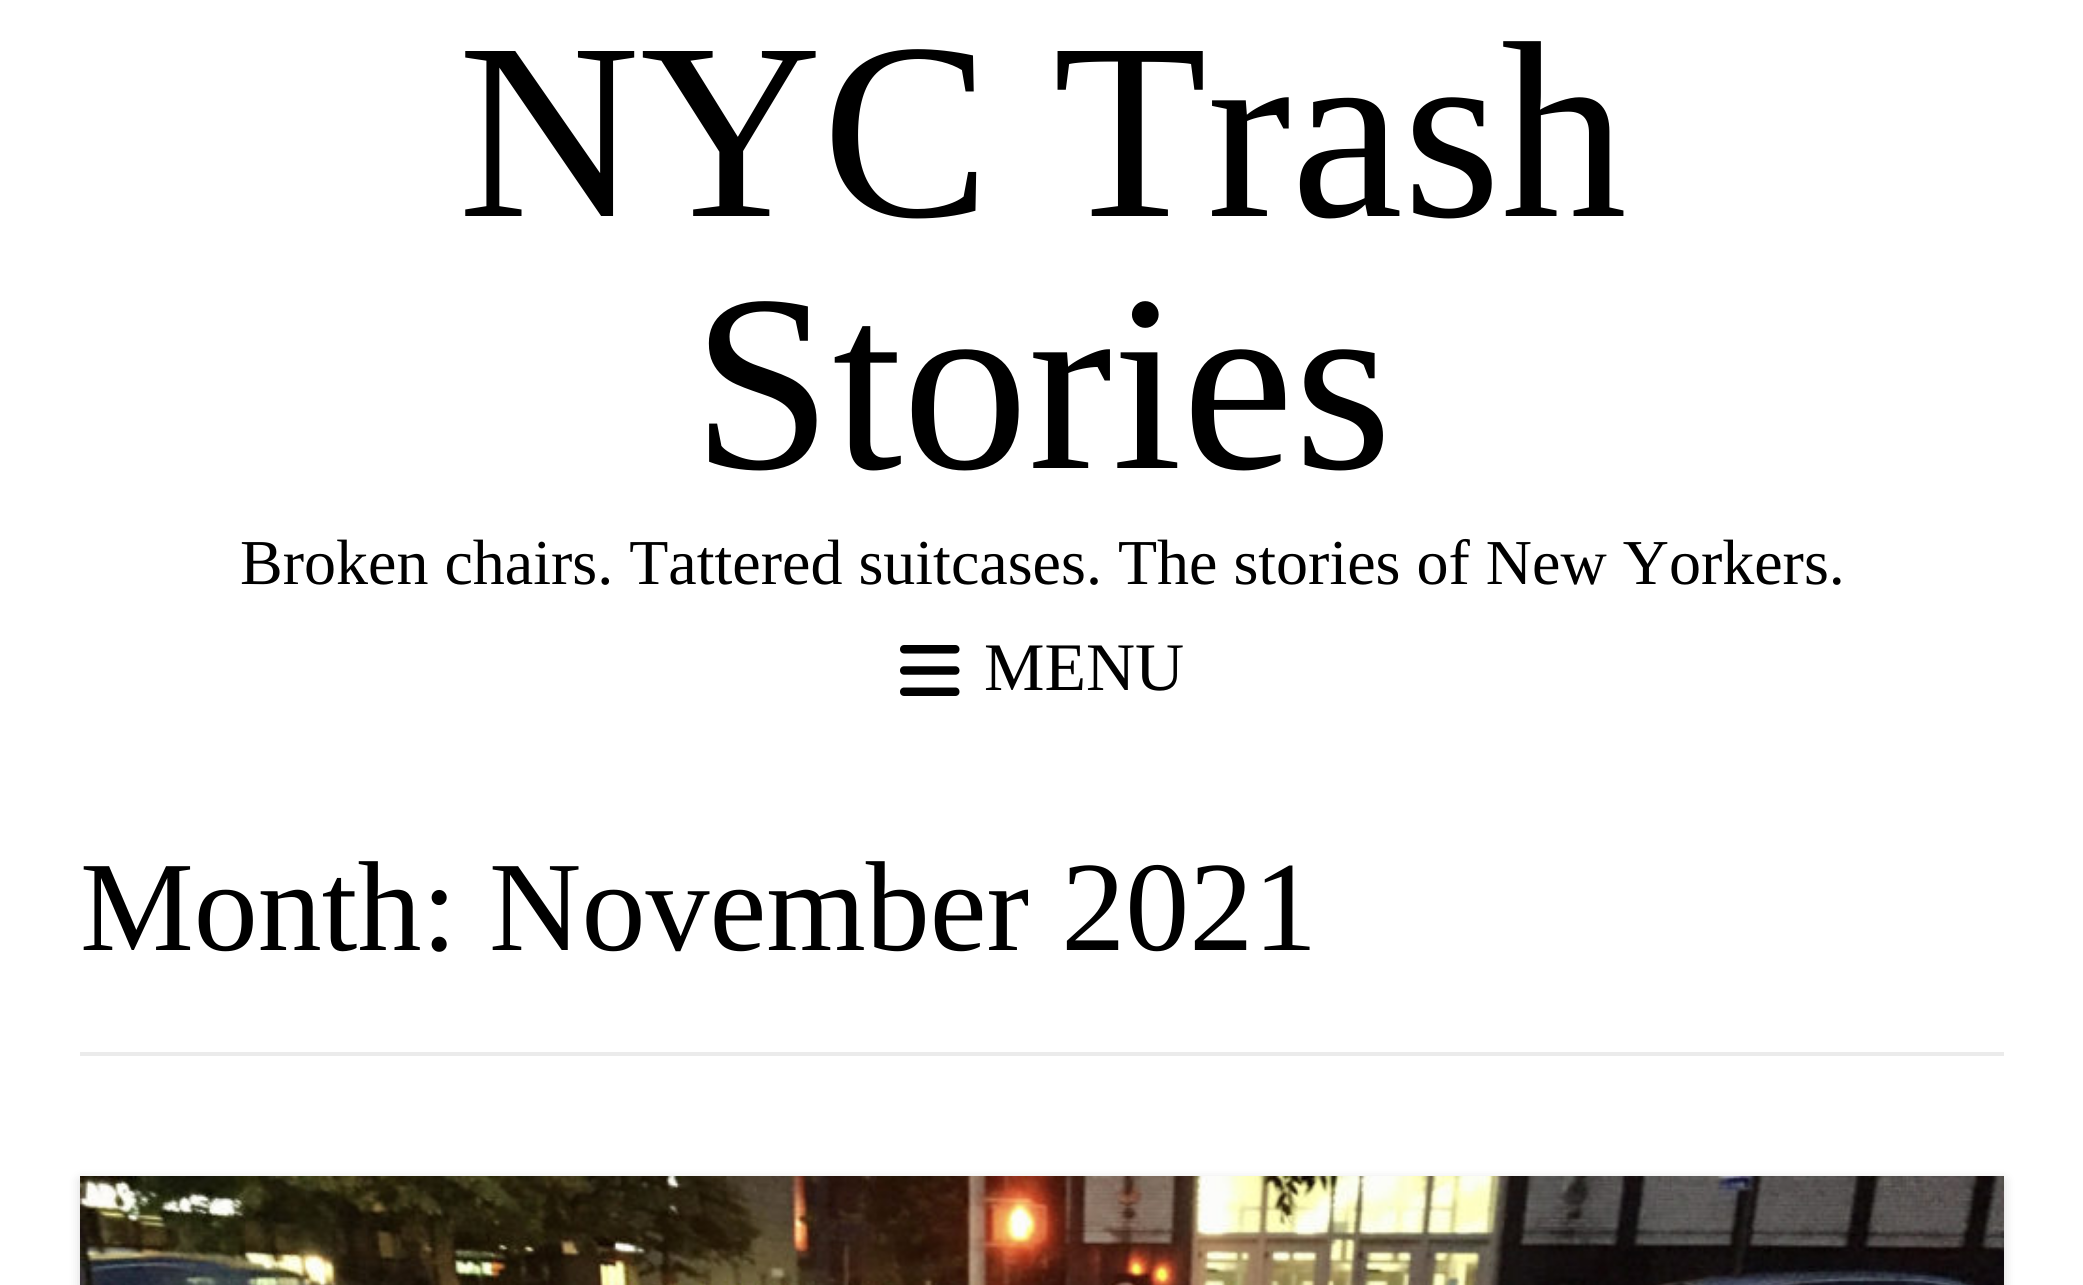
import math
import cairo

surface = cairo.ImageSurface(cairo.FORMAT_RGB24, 2083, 1285)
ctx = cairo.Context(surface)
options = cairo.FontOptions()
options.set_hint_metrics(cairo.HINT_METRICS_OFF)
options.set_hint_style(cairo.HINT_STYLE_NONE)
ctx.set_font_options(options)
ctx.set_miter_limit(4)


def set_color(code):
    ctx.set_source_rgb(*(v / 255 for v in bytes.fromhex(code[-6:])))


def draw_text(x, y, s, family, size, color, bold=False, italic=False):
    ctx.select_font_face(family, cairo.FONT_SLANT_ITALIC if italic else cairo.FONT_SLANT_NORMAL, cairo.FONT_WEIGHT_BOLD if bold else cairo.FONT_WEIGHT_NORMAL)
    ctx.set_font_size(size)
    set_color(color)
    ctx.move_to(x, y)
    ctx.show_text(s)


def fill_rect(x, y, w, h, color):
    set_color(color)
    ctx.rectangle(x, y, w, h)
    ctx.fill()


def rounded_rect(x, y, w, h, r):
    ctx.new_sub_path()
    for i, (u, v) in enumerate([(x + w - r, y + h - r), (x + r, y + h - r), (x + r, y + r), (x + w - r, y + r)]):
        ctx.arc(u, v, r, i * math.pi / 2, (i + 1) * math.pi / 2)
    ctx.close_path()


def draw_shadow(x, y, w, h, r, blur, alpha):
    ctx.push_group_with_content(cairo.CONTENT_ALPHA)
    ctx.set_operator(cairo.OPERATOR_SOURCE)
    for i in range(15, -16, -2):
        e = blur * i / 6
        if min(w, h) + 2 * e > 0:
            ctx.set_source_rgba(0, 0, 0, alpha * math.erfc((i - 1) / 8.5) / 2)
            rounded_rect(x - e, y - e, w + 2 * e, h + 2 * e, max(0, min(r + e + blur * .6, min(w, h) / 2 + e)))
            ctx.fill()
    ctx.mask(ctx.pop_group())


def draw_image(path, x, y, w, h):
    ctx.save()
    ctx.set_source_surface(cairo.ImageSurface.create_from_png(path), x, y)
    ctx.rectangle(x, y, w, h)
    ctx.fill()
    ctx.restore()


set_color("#ffffff")
ctx.paint()
draw_text(458, 216, "NYC Trash", "Liberation Serif", 252, "#000000")
draw_text(692, 468, "Stories", "Liberation Serif", 252, "#000000")
draw_text(240, 584, "Broken chairs. Tattered suitcases. The stories of New Yorkers.", "Liberation Serif", 64, "#000000")
draw_image("assets/img1.png", 900, 645, 60, 51)
draw_text(984, 690, "MENU", "Liberation Serif", 68, "#000000")
fill_rect(80, 1052, 1924, 4, "#ebebeb")
draw_text(80, 950, "Month: November 2021", "Liberation Serif", 128, "#000000")
set_color("#000000")
draw_shadow(80, 1180, 1924, 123, 0, 6, 0.15)
draw_image("assets/img2.png", 80, 1176, 1924, 109)
surface.write_to_png("output.png")
